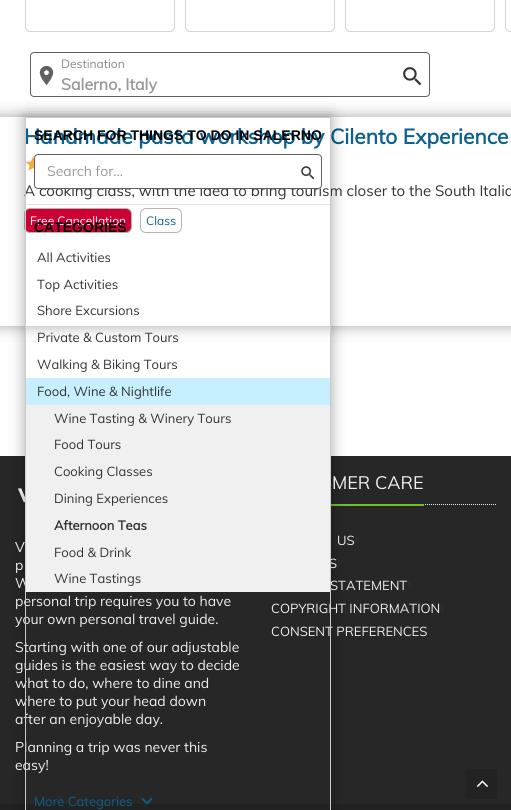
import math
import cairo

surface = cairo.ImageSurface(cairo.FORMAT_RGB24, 511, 810)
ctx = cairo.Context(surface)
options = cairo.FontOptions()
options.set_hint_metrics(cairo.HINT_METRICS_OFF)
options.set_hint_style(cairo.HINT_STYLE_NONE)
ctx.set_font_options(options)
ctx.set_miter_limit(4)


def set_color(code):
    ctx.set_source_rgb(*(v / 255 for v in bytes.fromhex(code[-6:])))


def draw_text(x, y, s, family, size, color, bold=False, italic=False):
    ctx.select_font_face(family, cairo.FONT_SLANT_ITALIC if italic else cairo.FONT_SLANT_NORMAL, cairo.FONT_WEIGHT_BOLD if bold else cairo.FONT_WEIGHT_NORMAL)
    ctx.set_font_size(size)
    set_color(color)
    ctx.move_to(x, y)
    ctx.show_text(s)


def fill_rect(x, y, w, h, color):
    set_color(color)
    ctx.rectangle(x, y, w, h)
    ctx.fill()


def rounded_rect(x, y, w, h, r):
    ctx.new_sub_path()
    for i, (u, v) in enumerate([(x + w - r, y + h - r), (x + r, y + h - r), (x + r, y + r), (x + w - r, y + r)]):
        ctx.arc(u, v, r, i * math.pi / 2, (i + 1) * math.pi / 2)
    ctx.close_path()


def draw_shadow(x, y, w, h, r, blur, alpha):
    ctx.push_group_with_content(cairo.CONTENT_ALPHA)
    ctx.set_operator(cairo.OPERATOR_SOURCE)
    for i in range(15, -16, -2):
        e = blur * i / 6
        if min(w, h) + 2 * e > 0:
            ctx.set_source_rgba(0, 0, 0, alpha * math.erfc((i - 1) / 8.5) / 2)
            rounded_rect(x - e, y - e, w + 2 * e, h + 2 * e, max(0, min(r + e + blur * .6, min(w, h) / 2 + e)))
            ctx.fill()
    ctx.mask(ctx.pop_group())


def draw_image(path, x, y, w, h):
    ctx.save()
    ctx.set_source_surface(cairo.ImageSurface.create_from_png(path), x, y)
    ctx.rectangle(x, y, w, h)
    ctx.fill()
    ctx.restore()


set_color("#ffffff")
ctx.paint()
rounded_rect(25.5, -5.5, 149, 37, 4.5)
set_color("#d7d4d2")
ctx.set_line_width(1)
ctx.stroke()
rounded_rect(185.5, -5.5, 149, 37, 4.5)
ctx.stroke()
rounded_rect(345.5, -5.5, 149, 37, 4.5)
ctx.stroke()
rounded_rect(505.5, -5.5, 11, 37, 4.5)
ctx.stroke()
rounded_rect(30.5, 52.5, 399, 44, 3.5)
set_color("#606060")
ctx.stroke()
draw_text(61, 68, "Destination", "Muli", 12, "#8c8787")
draw_image("assets/img1.png", 39, 65, 15, 20)
draw_text(61, 90, "Salerno, Italy", "Muli", 16, "#999999", bold=True)
draw_image("assets/img2.png", 403, 67, 19, 19)
ctx.save()
ctx.set_fill_rule(cairo.FILL_RULE_EVEN_ODD)
ctx.new_path()
ctx.move_to(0, 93)
ctx.line_to(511, 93)
ctx.line_to(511, 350)
ctx.line_to(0, 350)
ctx.close_path()
ctx.move_to(-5, 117)
ctx.line_to(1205, 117)
ctx.line_to(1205, 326)
ctx.line_to(-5, 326)
ctx.close_path()
ctx.clip()
set_color("#000000")
draw_shadow(-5, 117, 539, 209, 0, 7.5, 0.35)
ctx.restore()
draw_text(24, 144, "Handmade pasta workshop by Cilento Experience", "Muli", 21, "#0c608e", bold=True)
draw_image("assets/img3.png", 26, 156, 8, 15)
draw_text(24, 196, "A cooking class, with the idea to bring tourism closer to the South Italia", "Muli", 15, "#333333")
set_color("#cc0033")
rounded_rect(24.5, 208.5, 107, 24, 5.5)
ctx.fill_preserve()
set_color("#b4b4b4")
ctx.stroke()
draw_text(30, 225, "Free Cancellation", "Muli", 12, "#ffffff")
rounded_rect(140.5, 208.5, 41, 24, 5.5)
set_color("#b4b4b4")
ctx.stroke()
draw_text(146, 225, "Class", "Muli", 12, "#0c608e")
fill_rect(0, 456, 511, 348, "#272727")
draw_image("assets/img6.png", 18, 488, 7, 15)
ctx.new_path()
ctx.move_to(271, 504.5)
ctx.line_to(496, 504.5)
set_color("#e4e9f0")
ctx.set_dash([1, 1])
ctx.stroke()
fill_rect(331, 504, 93, 2, "#72c02c")
draw_image("assets/img7.png", 338, 560, 3, 6)
fill_rect(0, 804, 511, 6, "#222222")
ctx.save()
ctx.set_fill_rule(cairo.FILL_RULE_EVEN_ODD)
ctx.new_path()
ctx.move_to(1, 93)
ctx.line_to(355, 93)
ctx.line_to(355, 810)
ctx.line_to(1, 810)
ctx.close_path()
ctx.move_to(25, 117)
ctx.line_to(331, 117)
ctx.line_to(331, 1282)
ctx.line_to(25, 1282)
ctx.close_path()
ctx.clip()
set_color("#000000")
draw_shadow(25, 117, 306, 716, 0, 7.5, 0.35)
ctx.restore()
draw_text(15, 588, "W", "Muli", 14, "#eeeeee")
draw_text(15, 606, "personal trip requires you to have", "Muli", 14, "#eeeeee")
draw_text(15, 624, "your own personal travel guide.", "Muli", 14, "#eeeeee")
draw_text(15, 652, "Starting with one of our adjustable", "Muli", 14, "#eeeeee")
draw_text(15, 670, "guides is the easiest way to decide", "Muli", 14, "#eeeeee")
draw_text(15, 688, "what to do, where to dine and", "Muli", 14, "#eeeeee")
draw_text(15, 706, "where to put your head down", "Muli", 14, "#eeeeee")
draw_text(15, 724, "after an enjoyable day.", "Muli", 14, "#eeeeee")
draw_text(15, 752, "Planning a trip was never this", "Muli", 14, "#eeeeee")
draw_text(15, 770, "easy!", "Muli", 14, "#eeeeee")
draw_text(329, 568, "S", "Muli", 13, "#eeeeee")
draw_text(330, 590, "STATEMENT", "Muli", 13, "#eeeeee")
draw_text(271, 613, "COPYRIGHT INFORMATION", "Muli", 13, "#eeeeee")
draw_text(271, 636, "CONSENT PREFERENCES", "Muli", 13, "#eeeeee")
ctx.rectangle(25.5, 117.5, 305, 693)
set_color("#cccccc")
ctx.set_dash([])
ctx.stroke()
draw_text(34, 140, "SEARCH FOR THINGS TO DO IN SALERNO", "Liberation Sans", 14, "#000000", bold=True)
set_color("#ffffff")
rounded_rect(34.5, 154.5, 287, 34, 3.5)
ctx.fill_preserve()
set_color("#606060")
ctx.stroke()
draw_text(47, 176, "Search for...", "Muli", 14, "#999999")
draw_image("assets/img4.png", 301, 166, 14, 14)
fill_rect(26, 204, 304, 1, "#e2e2e2")
draw_text(34, 232, "CATEGORIES", "Liberation Sans", 14, "#000000", bold=True)
draw_text(37, 262, "All Activities", "Muli", 13, "#333333")
draw_text(37, 289, "Top Activities", "Muli", 13, "#333333")
draw_text(37, 315, "Shore Excursions", "Muli", 13, "#333333")
draw_text(37, 342, "Private & Custom Tours", "Muli", 13, "#333333")
draw_text(37, 369, "Walking & Biking Tours", "Muli", 13, "#333333")
fill_rect(26, 405, 304, 187, "#f0f0f0")
fill_rect(26, 378, 304, 27, "#c6f0ff")
draw_text(37, 396, "Food, Wine & Nightlife", "Muli", 13, "#333333")
draw_text(54, 423, "Wine Tasting & Winery Tours", "Muli", 13, "#333333")
draw_text(54, 449, "Food Tours", "Muli", 13, "#333333")
draw_text(54, 476, "Cooking Classes", "Muli", 13, "#333333")
draw_text(54, 503, "Dining Experiences", "Muli", 13, "#333333")
draw_text(54, 530, "Afternoon Teas", "Muli", 13, "#333333", bold=True)
draw_text(54, 557, "Food & Drink", "Muli", 13, "#333333")
draw_text(54, 583, "Wine Tastings", "Muli", 13, "#333333")
draw_text(34, 806, "More Categories", "Muli", 13, "#0c608e")
draw_image("assets/img5.png", 141, 798, 12, 7)
draw_text(15, 552, "V", "Muli", 14, "#eeeeee")
draw_text(15, 570, "p", "Muli", 14, "#eeeeee")
draw_text(332, 489, "MER CARE", "Muli", 18, "#eeeeee")
draw_text(337, 545, "US", "Muli", 13, "#eeeeee")
draw_image("assets/img7.png", 355, 537, 3, 6)
draw_image("assets/img7.png", 408, 582, 3, 6)
draw_image("assets/img7.png", 441, 605, 3, 6)
set_color("#222222")
rounded_rect(467, 769, 30, 30, 3)
ctx.fill()
draw_image("assets/img8.png", 476, 780, 12, 7)
surface.write_to_png("output.png")
